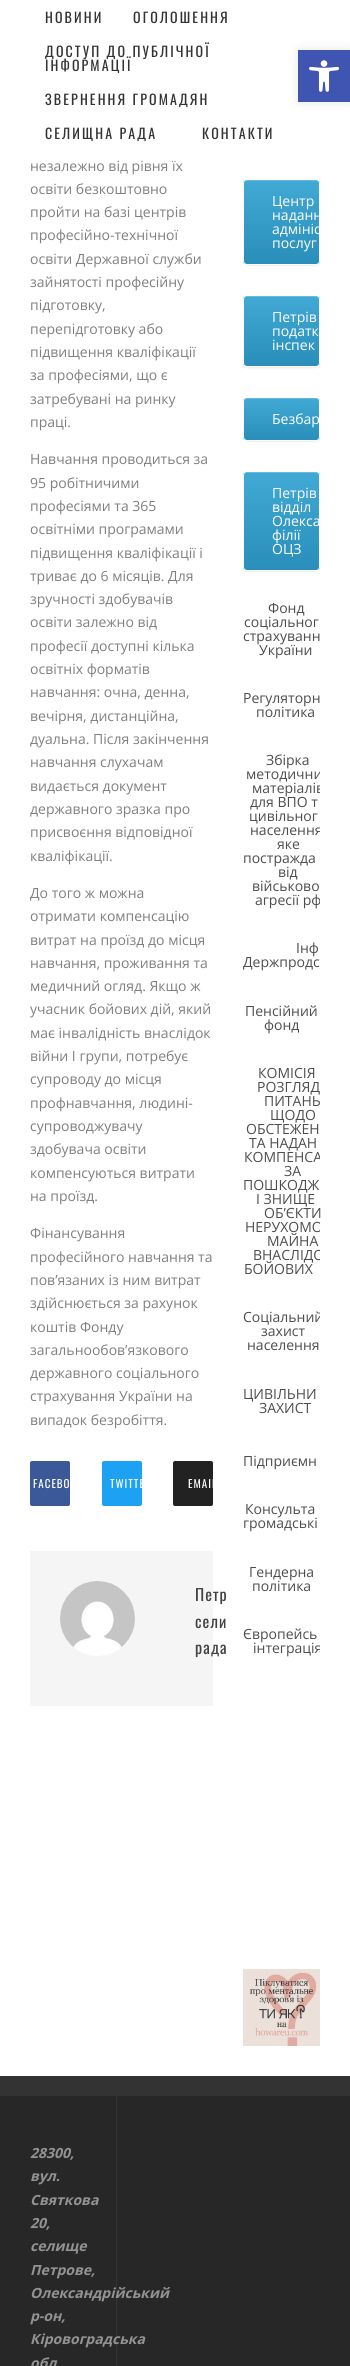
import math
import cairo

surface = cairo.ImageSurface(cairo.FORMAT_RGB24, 350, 2366)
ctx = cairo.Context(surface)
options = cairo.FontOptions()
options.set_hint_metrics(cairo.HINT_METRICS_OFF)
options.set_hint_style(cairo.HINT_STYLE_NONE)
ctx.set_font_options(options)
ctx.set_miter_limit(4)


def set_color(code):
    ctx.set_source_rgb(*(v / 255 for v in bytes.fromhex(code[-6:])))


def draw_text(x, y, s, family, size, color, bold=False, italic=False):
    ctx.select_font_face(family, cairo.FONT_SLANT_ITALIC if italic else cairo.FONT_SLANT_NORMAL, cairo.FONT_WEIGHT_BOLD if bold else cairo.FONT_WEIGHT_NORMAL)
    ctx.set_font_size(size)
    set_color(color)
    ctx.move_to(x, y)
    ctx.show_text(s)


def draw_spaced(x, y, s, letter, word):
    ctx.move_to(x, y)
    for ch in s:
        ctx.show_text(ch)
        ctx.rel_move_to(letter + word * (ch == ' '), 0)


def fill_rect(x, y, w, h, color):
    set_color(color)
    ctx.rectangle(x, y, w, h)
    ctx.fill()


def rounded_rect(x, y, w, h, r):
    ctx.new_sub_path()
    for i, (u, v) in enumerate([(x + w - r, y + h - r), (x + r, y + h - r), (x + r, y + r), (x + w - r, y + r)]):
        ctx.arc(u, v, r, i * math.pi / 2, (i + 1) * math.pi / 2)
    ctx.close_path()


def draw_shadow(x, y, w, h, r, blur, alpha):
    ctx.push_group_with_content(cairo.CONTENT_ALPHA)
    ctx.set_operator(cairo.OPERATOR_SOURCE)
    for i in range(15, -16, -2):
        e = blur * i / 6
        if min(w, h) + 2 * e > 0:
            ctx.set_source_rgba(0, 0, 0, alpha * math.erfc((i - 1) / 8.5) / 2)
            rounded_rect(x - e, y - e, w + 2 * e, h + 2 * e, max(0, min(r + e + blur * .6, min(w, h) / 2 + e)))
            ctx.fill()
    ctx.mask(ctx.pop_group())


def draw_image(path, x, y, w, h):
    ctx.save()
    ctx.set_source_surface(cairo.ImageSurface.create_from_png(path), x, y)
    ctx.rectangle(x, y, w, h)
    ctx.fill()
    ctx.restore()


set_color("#ffffff")
ctx.paint()
ctx.select_font_face("Oswald")
ctx.set_font_size(14)
set_color("#333333")
draw_spaced(45, 23, "НОВИНИ", 2.1, 0)
draw_spaced(133, 23, "ОГОЛОШЕННЯ", 2.1, 0)
draw_spaced(45, 57, "ДОСТУП ДО ПУБЛІЧНОЇ", 2.1, 0)
draw_spaced(45, 71, "ІНФОРМАЦІЇ", 2.1, 0)
draw_spaced(45, 105, "ЗВЕРНЕННЯ ГРОМАДЯН", 2.1, 0)
draw_spaced(45, 139, "СЕЛИЩНА РАДА", 2.1, 0)
draw_spaced(202, 139, "КОНТАКТИ", 2.1, 0)
draw_text(30, 171, "незалежно від рівня їх", "Open Sans", 14, "#808080")
draw_text(30, 194, "освіти безкоштовно", "Open Sans", 14, "#808080")
draw_text(30, 217, "пройти на базі центрів", "Open Sans", 14, "#808080")
draw_text(30, 240, "професійно-технічної", "Open Sans", 14, "#808080")
draw_text(30, 264, "освіти Державної служби", "Open Sans", 14, "#808080")
draw_text(30, 287, "зайнятості професійну", "Open Sans", 14, "#808080")
draw_text(30, 310, "підготовку,", "Open Sans", 14, "#808080")
draw_text(30, 334, "перепідготовку або", "Open Sans", 14, "#808080")
draw_text(30, 357, "підвищення кваліфікації", "Open Sans", 14, "#808080")
draw_text(30, 380, "за професіями, що є", "Open Sans", 14, "#808080")
draw_text(30, 404, "затребувані на ринку", "Open Sans", 14, "#808080")
draw_text(30, 427, "праці.", "Open Sans", 14, "#808080")
draw_text(30, 464, "Навчання проводиться за", "Open Sans", 14, "#808080")
draw_text(30, 488, "95 робітничими", "Open Sans", 14, "#808080")
draw_text(30, 511, "професіями та 365", "Open Sans", 14, "#808080")
draw_text(30, 534, "освітніми програмами", "Open Sans", 14, "#808080")
draw_text(30, 558, "підвищення кваліфікації і", "Open Sans", 14, "#808080")
draw_text(30, 581, "триває до 6 місяців. Для", "Open Sans", 14, "#808080")
draw_text(30, 604, "зручності здобувачів", "Open Sans", 14, "#808080")
draw_text(30, 627, "освіти залежно від", "Open Sans", 14, "#808080")
draw_text(30, 651, "професії доступні кілька", "Open Sans", 14, "#808080")
draw_text(30, 674, "освітніх форматів", "Open Sans", 14, "#808080")
draw_text(30, 697, "навчання: очна, денна,", "Open Sans", 14, "#808080")
draw_text(30, 721, "вечірня, дистанційна,", "Open Sans", 14, "#808080")
draw_text(30, 744, "дуальна. Після закінчення", "Open Sans", 14, "#808080")
draw_text(30, 767, "навчання слухачам", "Open Sans", 14, "#808080")
draw_text(30, 791, "видається документ", "Open Sans", 14, "#808080")
draw_text(30, 814, "державного зразка про", "Open Sans", 14, "#808080")
draw_text(30, 837, "присвоєння відповідної", "Open Sans", 14, "#808080")
draw_text(30, 861, "кваліфікації.", "Open Sans", 14, "#808080")
draw_text(30, 898, "До того ж можна", "Open Sans", 14, "#808080")
draw_text(30, 921, "отримати компенсацію", "Open Sans", 14, "#808080")
draw_text(30, 945, "витрат на проїзд до місця", "Open Sans", 14, "#808080")
draw_text(30, 968, "навчання, проживання та", "Open Sans", 14, "#808080")
draw_text(30, 991, "медичний огляд. Якщо ж", "Open Sans", 14, "#808080")
draw_text(30, 1014, "учасник бойових дій, який", "Open Sans", 14, "#808080")
draw_text(30, 1038, "має інвалідність внаслідок", "Open Sans", 14, "#808080")
draw_text(30, 1061, "війни І групи, потребує", "Open Sans", 14, "#808080")
draw_text(30, 1084, "супроводу до місця", "Open Sans", 14, "#808080")
draw_text(30, 1108, "профнавчання, людині-", "Open Sans", 14, "#808080")
draw_text(30, 1131, "супроводжувачу", "Open Sans", 14, "#808080")
draw_text(30, 1154, "здобувача освіти", "Open Sans", 14, "#808080")
draw_text(30, 1178, "компенсуються витрати", "Open Sans", 14, "#808080")
draw_text(30, 1201, "на проїзд.", "Open Sans", 14, "#808080")
draw_text(30, 1238, "Фінансування", "Open Sans", 14, "#808080")
draw_text(30, 1262, "професійного навчання та", "Open Sans", 14, "#808080")
draw_text(30, 1285, "пов’язаних із ним витрат", "Open Sans", 14, "#808080")
draw_text(30, 1308, "здійснюється за рахунок", "Open Sans", 14, "#808080")
draw_text(30, 1332, "коштів Фонду", "Open Sans", 14, "#808080")
draw_text(30, 1355, "загальнообов’язкового", "Open Sans", 14, "#808080")
draw_text(30, 1378, "державного соціального", "Open Sans", 14, "#808080")
draw_text(30, 1401, "страхування України на", "Open Sans", 14, "#808080")
draw_text(30, 1425, "випадок безробіття.", "Open Sans", 14, "#808080")
set_color("#3b5998")
rounded_rect(30, 1461, 40, 45, 2)
ctx.fill()
ctx.select_font_face("Oswald")
ctx.set_font_size(11)
set_color("#ffffff")
draw_spaced(33, 1488, "FACEBO", 1, 0)
set_color("#1da1f2")
rounded_rect(102, 1461, 40, 45, 2)
ctx.fill()
set_color("#ffffff")
draw_spaced(110, 1488, "TWITTE", 1, 0)
set_color("#222222")
rounded_rect(173, 1461, 40, 45, 2)
ctx.fill()
set_color("#ffffff")
draw_spaced(188, 1488, "EMAIL", 1, 0)
fill_rect(30, 1551, 183, 155, "#f5f5f5")
draw_image("assets/img1.png", 60, 1581, 75, 75)
ctx.set_font_size(16)
set_color("#424242")
draw_spaced(195, 1601, "Петр", 1, 0)
draw_spaced(195, 1628, "сели", 1, 0)
draw_spaced(195, 1654, "рада", 1, 0)
set_color("#000000")
draw_shadow(243, 180, 77, 86, 4, 1, 0.07)
ctx.save()
rounded_rect(243, 179, 77, 86, 4)
ctx.clip()
gradient = cairo.LinearGradient(244, 264, 244, 180)
gradient.add_color_stop_rgba(0, 0.161, 0.561, 0.729, 1)
gradient.add_color_stop_rgba(1, 0.255, 0.663, 0.835, 1)
ctx.set_source(gradient)
ctx.rectangle(243, 180, 77, 84)
ctx.fill()
ctx.restore()
ctx.set_source_rgba(1, 1, 1, 0.2)
ctx.new_path()
ctx.move_to(246, 181)
ctx.line_to(316, 181)
ctx.curve_to(318, 181, 319, 182, 319, 184)
ctx.curve_to(319, 177, 310, 180, 305, 180)
ctx.line_to(258, 180)
ctx.curve_to(253, 180, 244, 177, 244, 184)
ctx.curve_to(244, 182, 245, 181, 246, 181)
ctx.close_path()
ctx.fill()
rounded_rect(243.5, 179.5, 76, 85, 3.5)
set_color("#ffffff")
ctx.set_line_width(1)
ctx.stroke()
draw_text(272, 206, "Центр", "Open Sans", 14, "#ffffff")
ctx.save()
ctx.rectangle(243, 179, 77, 86)
ctx.clip()
draw_text(272, 220, "наданн", "Open Sans", 14, "#ffffff")
draw_text(272, 234, "адмініс", "Open Sans", 14, "#ffffff")
ctx.restore()
draw_text(272, 248, "послуг", "Open Sans", 14, "#ffffff")
set_color("#000000")
draw_shadow(243, 296, 77, 72, 4, 1, 0.07)
ctx.save()
rounded_rect(243, 295, 77, 72, 4)
ctx.clip()
gradient = cairo.LinearGradient(244, 366, 244, 296)
gradient.add_color_stop_rgba(0, 0.161, 0.561, 0.729, 1)
gradient.add_color_stop_rgba(1, 0.255, 0.663, 0.835, 1)
ctx.set_source(gradient)
ctx.rectangle(243, 296, 77, 70)
ctx.fill()
ctx.restore()
ctx.set_source_rgba(1, 1, 1, 0.2)
ctx.new_path()
ctx.move_to(246, 297)
ctx.line_to(316, 297)
ctx.curve_to(318, 297, 319, 298, 319, 300)
ctx.curve_to(319, 293, 310, 296, 305, 296)
ctx.line_to(258, 296)
ctx.curve_to(253, 296, 244, 293, 244, 300)
ctx.curve_to(244, 298, 245, 297, 246, 297)
ctx.close_path()
ctx.fill()
rounded_rect(243.5, 295.5, 76, 71, 3.5)
set_color("#ffffff")
ctx.stroke()
draw_text(272, 322, "Петрів", "Open Sans", 14, "#ffffff")
draw_text(272, 336, "податк", "Open Sans", 14, "#ffffff")
draw_text(272, 350, "інспек", "Open Sans", 14, "#ffffff")
set_color("#000000")
draw_shadow(243, 398, 77, 44, 4, 1, 0.07)
ctx.save()
rounded_rect(243, 397, 77, 44, 4)
ctx.clip()
gradient = cairo.LinearGradient(244, 440, 244, 398)
gradient.add_color_stop_rgba(0, 0.161, 0.561, 0.729, 1)
gradient.add_color_stop_rgba(1, 0.255, 0.663, 0.835, 1)
ctx.set_source(gradient)
ctx.rectangle(243, 398, 77, 42)
ctx.fill()
ctx.restore()
ctx.set_source_rgba(1, 1, 1, 0.2)
ctx.new_path()
ctx.move_to(246, 399)
ctx.line_to(316, 399)
ctx.curve_to(318, 399, 319, 400, 319, 402)
ctx.curve_to(319, 395, 310, 398, 305, 398)
ctx.line_to(258, 398)
ctx.curve_to(253, 398, 244, 395, 244, 402)
ctx.curve_to(244, 400, 245, 399, 246, 399)
ctx.close_path()
ctx.fill()
rounded_rect(243.5, 397.5, 76, 43, 3.5)
set_color("#ffffff")
ctx.stroke()
draw_text(272, 424, "Безбар", "Open Sans", 14, "#ffffff")
set_color("#000000")
draw_shadow(243, 472, 77, 100, 4, 1, 0.07)
ctx.save()
rounded_rect(243, 471, 77, 100, 4)
ctx.clip()
gradient = cairo.LinearGradient(244, 570, 244, 472)
gradient.add_color_stop_rgba(0, 0.161, 0.561, 0.729, 1)
gradient.add_color_stop_rgba(1, 0.255, 0.663, 0.835, 1)
ctx.set_source(gradient)
ctx.rectangle(243, 472, 77, 98)
ctx.fill()
ctx.restore()
ctx.set_source_rgba(1, 1, 1, 0.2)
ctx.new_path()
ctx.move_to(246, 473)
ctx.line_to(316, 473)
ctx.curve_to(318, 473, 319, 474, 319, 476)
ctx.curve_to(319, 469, 310, 472, 305, 472)
ctx.line_to(258, 472)
ctx.curve_to(253, 472, 244, 469, 244, 476)
ctx.curve_to(244, 474, 245, 473, 246, 473)
ctx.close_path()
ctx.fill()
rounded_rect(243.5, 471.5, 76, 99, 3.5)
set_color("#ffffff")
ctx.stroke()
draw_text(272, 498, "Петрів", "Open Sans", 14, "#ffffff")
draw_text(272, 512, "відділ", "Open Sans", 14, "#ffffff")
draw_text(272, 526, "Олекса", "Open Sans", 14, "#ffffff")
draw_text(272, 540, "філії", "Open Sans", 14, "#ffffff")
draw_text(272, 554, "ОЦЗ", "Open Sans", 14, "#ffffff")
draw_text(268, 613, "Фонд", "Open Sans", 14, "#4d4d4d")
draw_text(244, 627, "соціальног", "Open Sans", 14, "#4d4d4d")
draw_text(243, 641, "страхуванн", "Open Sans", 14, "#4d4d4d")
draw_text(259, 655, "України", "Open Sans", 14, "#4d4d4d")
draw_text(243, 703, "Регуляторн", "Open Sans", 14, "#4d4d4d")
draw_text(256, 717, "політика", "Open Sans", 14, "#4d4d4d")
draw_text(266, 765, "Збірка", "Open Sans", 14, "#4d4d4d")
ctx.save()
ctx.rectangle(243, 753, 77, 158)
ctx.clip()
draw_text(246, 779, "методични", "Open Sans", 14, "#4d4d4d")
draw_text(252, 793, "матеріалів", "Open Sans", 14, "#4d4d4d")
ctx.restore()
draw_text(250, 807, "для ВПО т", "Open Sans", 14, "#4d4d4d")
draw_text(249, 821, "цивільног", "Open Sans", 14, "#4d4d4d")
ctx.save()
ctx.rectangle(243, 753, 77, 158)
ctx.clip()
draw_text(250, 835, "населення", "Open Sans", 14, "#4d4d4d")
ctx.restore()
draw_text(277, 849, "яке", "Open Sans", 14, "#4d4d4d")
draw_text(243, 863, "постражда", "Open Sans", 14, "#4d4d4d")
draw_text(278, 877, "від", "Open Sans", 14, "#4d4d4d")
draw_text(252, 891, "військово", "Open Sans", 14, "#4d4d4d")
ctx.save()
ctx.rectangle(243, 753, 77, 158)
ctx.clip()
draw_text(255, 905, "агресії рф", "Open Sans", 14, "#4d4d4d")
ctx.restore()
draw_text(296, 953, "Інф", "Open Sans", 14, "#4d4d4d")
draw_text(243, 967, "Держпродс", "Open Sans", 14, "#4d4d4d")
draw_text(245, 1016, "Пенсійний", "Open Sans", 14, "#4d4d4d")
draw_text(264, 1030, "фонд", "Open Sans", 14, "#4d4d4d")
draw_text(258, 1078, "КОМІСІЯ", "Open Sans", 14, "#4d4d4d")
draw_text(257, 1092, "РОЗГЛЯД", "Open Sans", 14, "#4d4d4d")
draw_text(264, 1106, "ПИТАНЬ", "Open Sans", 14, "#4d4d4d")
draw_text(270, 1120, "ЩОДО", "Open Sans", 14, "#4d4d4d")
draw_text(246, 1134, "ОБСТЕЖЕН", "Open Sans", 14, "#4d4d4d")
draw_text(249, 1148, "ТА НАДАН", "Open Sans", 14, "#4d4d4d")
ctx.save()
ctx.rectangle(243, 1066, 77, 214)
ctx.clip()
draw_text(244, 1162, "КОМПЕНСА", "Open Sans", 14, "#4d4d4d")
ctx.restore()
draw_text(284, 1176, "ЗА", "Open Sans", 14, "#4d4d4d")
draw_text(243, 1190, "ПОШКОДЖ", "Open Sans", 14, "#4d4d4d")
draw_text(256, 1204, "І ЗНИЩЕ", "Open Sans", 14, "#4d4d4d")
draw_text(264, 1218, "ОБ’ЄКТИ", "Open Sans", 14, "#4d4d4d")
ctx.save()
ctx.rectangle(243, 1066, 77, 214)
ctx.clip()
draw_text(245, 1232, "НЕРУХОМО", "Open Sans", 14, "#4d4d4d")
ctx.restore()
draw_text(267, 1246, "МАЙНА", "Open Sans", 14, "#4d4d4d")
ctx.save()
ctx.rectangle(243, 1066, 77, 214)
ctx.clip()
draw_text(253, 1260, "ВНАСЛІДО", "Open Sans", 14, "#4d4d4d")
ctx.restore()
draw_text(244, 1274, "БОЙОВИХ", "Open Sans", 14, "#4d4d4d")
ctx.save()
ctx.rectangle(243, 1310, 77, 47)
ctx.clip()
draw_text(243, 1322, "Соціальний", "Open Sans", 14, "#4d4d4d")
ctx.restore()
draw_text(261, 1336, "захист", "Open Sans", 14, "#4d4d4d")
draw_text(247, 1350, "населення", "Open Sans", 14, "#4d4d4d")
draw_text(243, 1399, "ЦИВІЛЬНИ", "Open Sans", 14, "#4d4d4d")
draw_text(259, 1413, "ЗАХИСТ", "Open Sans", 14, "#4d4d4d")
draw_text(243, 1466, "Підприємн", "Open Sans", 14, "#4d4d4d")
draw_text(245, 1514, "Консульта", "Open Sans", 14, "#4d4d4d")
draw_text(243, 1528, "громадські", "Open Sans", 14, "#4d4d4d")
draw_text(249, 1577, "Гендерна", "Open Sans", 14, "#4d4d4d")
draw_text(252, 1591, "політика", "Open Sans", 14, "#4d4d4d")
draw_text(243, 1639, "Європейсь", "Open Sans", 14, "#4d4d4d")
ctx.save()
ctx.rectangle(243, 1627, 77, 32)
ctx.clip()
draw_text(253, 1653, "інтеграція", "Open Sans", 14, "#4d4d4d")
ctx.restore()
draw_image("assets/img2.png", 243, 1969, 77, 77)
fill_rect(0, 2076, 350, 20, "#333333")
fill_rect(0, 2096, 350, 270, "#272727")
fill_rect(116, 2096, 1, 270, "#333333")
draw_text(30, 2158, "28300,", "Open Sans", 14, "#939393", bold=True, italic=True)
draw_text(30, 2181, "вул.", "Open Sans", 14, "#939393", bold=True, italic=True)
draw_text(30, 2205, "Святкова", "Open Sans", 14, "#939393", bold=True, italic=True)
draw_text(30, 2228, "20,", "Open Sans", 14, "#939393", bold=True, italic=True)
draw_text(30, 2251, "селище", "Open Sans", 14, "#939393", bold=True, italic=True)
draw_text(30, 2275, "Петрове,", "Open Sans", 14, "#939393", bold=True, italic=True)
draw_text(30, 2298, "Олександрійський", "Open Sans", 14, "#939393", bold=True, italic=True)
draw_text(30, 2321, "р-он,", "Open Sans", 14, "#939393", bold=True, italic=True)
draw_text(30, 2344, "Кіровоградська", "Open Sans", 14, "#939393", bold=True, italic=True)
draw_text(30, 2368, "обл.", "Open Sans", 14, "#939393", bold=True, italic=True)
set_color("#000000")
draw_shadow(298, 50, 52, 52, 0, 5, 0.1)
fill_rect(298, 50, 52, 52, "#4054b2")
draw_image("assets/img3.png", 309, 60, 30, 32)
surface.write_to_png("output.png")
